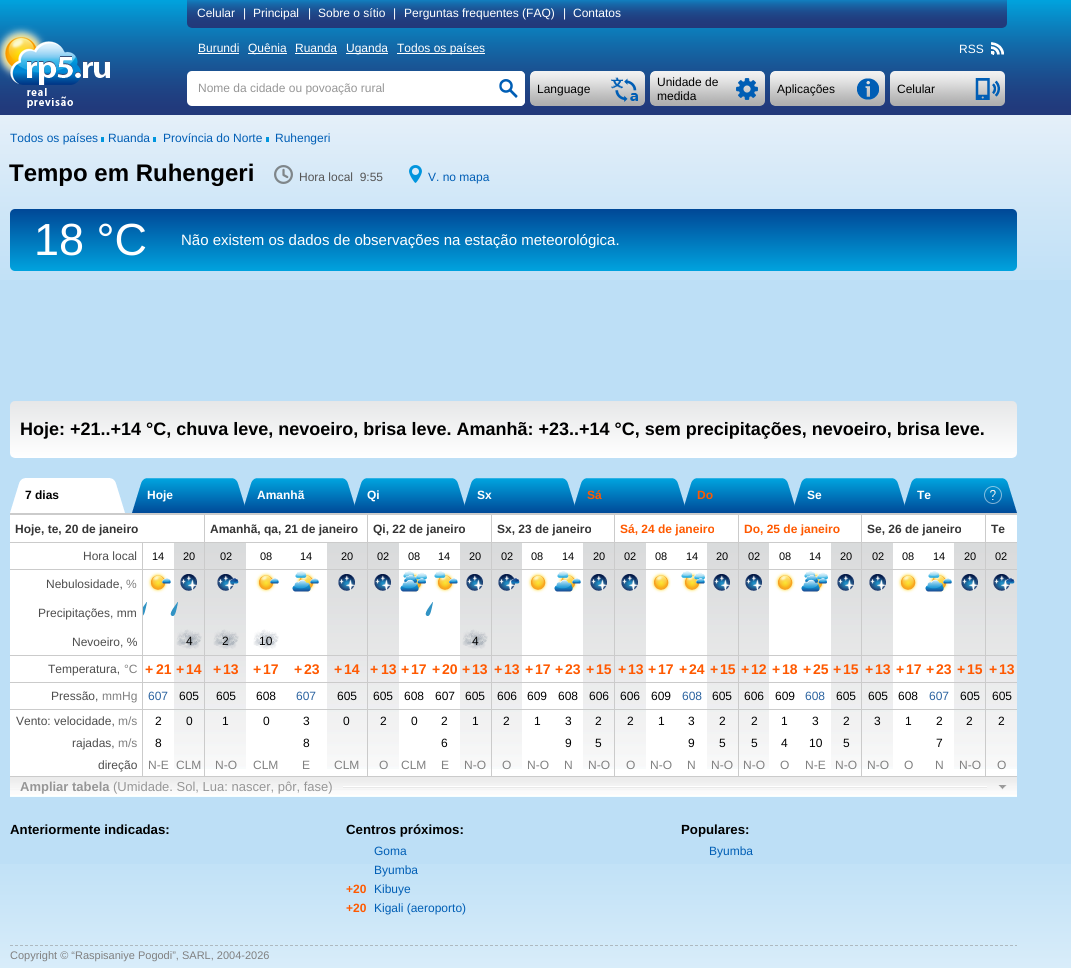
import math
import cairo

surface = cairo.ImageSurface(cairo.FORMAT_RGB24, 1071, 968)
ctx = cairo.Context(surface)
options = cairo.FontOptions()
options.set_hint_metrics(cairo.HINT_METRICS_OFF)
options.set_hint_style(cairo.HINT_STYLE_NONE)
ctx.set_font_options(options)
ctx.set_miter_limit(4)


def set_color(code):
    ctx.set_source_rgb(*(v / 255 for v in bytes.fromhex(code[-6:])))


def draw_text(x, y, s, family, size, color, bold=False, italic=False):
    ctx.select_font_face(family, cairo.FONT_SLANT_ITALIC if italic else cairo.FONT_SLANT_NORMAL, cairo.FONT_WEIGHT_BOLD if bold else cairo.FONT_WEIGHT_NORMAL)
    ctx.set_font_size(size)
    set_color(color)
    ctx.move_to(x, y)
    ctx.show_text(s)


def fill_rect(x, y, w, h, color):
    set_color(color)
    ctx.rectangle(x, y, w, h)
    ctx.fill()


def rounded_rect(x, y, w, h, r):
    ctx.new_sub_path()
    for i, (u, v) in enumerate([(x + w - r, y + h - r), (x + r, y + h - r), (x + r, y + r), (x + w - r, y + r)]):
        ctx.arc(u, v, r, i * math.pi / 2, (i + 1) * math.pi / 2)
    ctx.close_path()


def draw_image(path, x, y, w, h):
    ctx.save()
    ctx.set_source_surface(cairo.ImageSurface.create_from_png(path), x, y)
    ctx.rectangle(x, y, w, h)
    ctx.fill()
    ctx.restore()


set_color("#bddff6")
ctx.paint()
draw_image("assets/img1.png", 0, 121, 1071, 159)
draw_image("assets/img2.png", 0, 0, 1071, 121)
draw_image("assets/img3.png", 187, 0, 820, 28)
draw_text(197, 17, "Сelular", "Liberation Sans", 12, "#ffffff")
draw_text(243, 17, "|", "Liberation Sans", 12, "#ffffff")
draw_text(253, 17, "Principal", "Liberation Sans", 12, "#ffffff")
draw_text(308, 17, "|", "Liberation Sans", 12, "#ffffff")
draw_text(318, 17, "Sobre o sítio", "Liberation Sans", 12, "#ffffff")
draw_text(393, 17, "|", "Liberation Sans", 12, "#ffffff")
draw_text(404, 17, "Perguntas frequentes (FAQ)", "Liberation Sans", 12, "#ffffff")
draw_text(563, 17, "|", "Liberation Sans", 12, "#ffffff")
draw_text(573, 17, "Contatos", "Liberation Sans", 12, "#ffffff")
draw_image("assets/img4.png", 0, 25, 110, 83)
draw_text(198, 52, "Burundi", "Liberation Sans", 12, "#ffffff")
fill_rect(198, 53, 41, 1, "#ffffff")
fill_rect(248, 53, 39, 1, "#ffffff")
draw_text(248, 52, "Quênia", "Liberation Sans", 12, "#ffffff")
draw_text(295, 52, "Ruanda", "Liberation Sans", 12, "#ffffff")
fill_rect(295, 53, 42, 1, "#ffffff")
fill_rect(346, 53, 42, 1, "#ffffff")
draw_text(346, 52, "Uganda", "Liberation Sans", 12, "#ffffff")
fill_rect(397, 53, 88, 1, "#ffffff")
draw_text(397, 52, "Todos os países", "Liberation Sans", 12, "#ffffff")
draw_text(959, 53, "RSS", "Liberation Sans", 12, "#ffffff")
draw_image("assets/img5.png", 991, 42, 13, 13)
rounded_rect(187, 71, 338, 35, 5)
ctx.fill()
draw_text(198, 92, "Nome da cidade ou povoação rural", "Liberation Sans", 12, "#969696")
draw_image("assets/img6.png", 499, 71, 26, 35)
draw_image("assets/img7.png", 530, 71, 115, 35)
draw_text(537, 93, "Language", "Liberation Sans", 12, "#000000")
draw_image("assets/img8.png", 650, 71, 115, 35)
draw_text(657, 86, "Unidade de", "Liberation Sans", 12, "#000000")
draw_text(657, 100, "medida", "Liberation Sans", 12, "#000000")
draw_image("assets/img9.png", 770, 71, 115, 35)
draw_text(777, 93, "Aplicações", "Liberation Sans", 12, "#000000")
draw_image("assets/img10.png", 890, 71, 115, 35)
draw_text(897, 93, "Сelular", "Liberation Sans", 12, "#000000")
draw_text(10, 142, "Todos os países", "Liberation Sans", 12, "#005eb5")
fill_rect(101, 137, 3, 5, "#0096de")
draw_text(108, 142, "Ruanda", "Liberation Sans", 12, "#005eb5")
fill_rect(153, 137, 3, 5, "#0096de")
draw_text(163, 142, "Província do Norte", "Liberation Sans", 12, "#005eb5")
fill_rect(266, 137, 3, 5, "#0096de")
draw_text(275, 142, "Ruhengeri", "Liberation Sans", 12, "#005eb5")
draw_text(9, 181, "Tempo em Ruhengeri", "Liberation Sans", 24, "#000000", bold=True)
draw_image("assets/img11.png", 274, 165, 19, 19)
draw_text(299, 181, "Hora local  9:55", "Liberation Sans", 12, "#555555")
draw_image("assets/img12.png", 409, 165, 13, 18)
draw_text(428, 181, "V. no mapa", "Liberation Sans", 12, "#005eb5")
gradient = cairo.LinearGradient(514, 209, 514, 271)
gradient.add_color_stop_rgba(0, 0, 0.278, 0.588, 1)
gradient.add_color_stop_rgba(1, 0, 0.639, 0.871, 1)
ctx.set_source(gradient)
rounded_rect(10, 209, 1007, 62, 5)
ctx.fill()
draw_text(34, 255, "18 °C", "Liberation Sans", 45, "#ffffff")
draw_text(181, 245, "Não existem os dados de observações na estação meteorológica.", "Liberation Sans", 15, "#ffffff")
draw_image("assets/img13.png", 10, 401, 1007, 57)
draw_text(20, 435, "Hoje: +21..+14 °C, chuva leve, nevoeiro, brisa leve. Amanhã: +23..+14 °C, sem precipitações, nevoeiro, brisa leve.", "Liberation Sans", 18, "#000000", bold=True)
draw_image("assets/img14.png", 10, 478, 15, 35)
fill_rect(25, 478, 85, 35, "#ffffff")
draw_text(25, 499, "7 dias", "Liberation Sans", 12, "#000000", bold=True)
draw_image("assets/img15.png", 110, 478, 15, 35)
draw_image("assets/img16.png", 132, 478, 15, 35)
draw_image("assets/img17.png", 147, 478, 85, 35)
draw_text(147, 499, "Hoje", "Liberation Sans", 12, "#ffffff", bold=True)
draw_image("assets/img18.png", 232, 478, 13, 35)
draw_image("assets/img19.png", 244, 478, 13, 35)
draw_image("assets/img17.png", 257, 478, 85, 35)
draw_text(257, 499, "Amanhã", "Liberation Sans", 12, "#ffffff", bold=True)
draw_image("assets/img18.png", 342, 478, 13, 35)
draw_image("assets/img19.png", 354, 478, 13, 35)
draw_image("assets/img17.png", 367, 478, 85, 35)
draw_text(367, 499, "Qi", "Liberation Sans", 12, "#ffffff", bold=True)
draw_image("assets/img18.png", 452, 478, 13, 35)
draw_image("assets/img19.png", 464, 478, 13, 35)
draw_image("assets/img17.png", 477, 478, 85, 35)
draw_text(477, 499, "Sx", "Liberation Sans", 12, "#ffffff", bold=True)
draw_image("assets/img18.png", 562, 478, 13, 35)
draw_image("assets/img19.png", 574, 478, 13, 35)
draw_image("assets/img17.png", 587, 478, 85, 35)
draw_text(587, 499, "Sá", "Liberation Sans", 12, "#ff5900", bold=True)
draw_image("assets/img18.png", 672, 478, 13, 35)
draw_image("assets/img19.png", 684, 478, 13, 35)
draw_image("assets/img17.png", 697, 478, 85, 35)
draw_text(697, 499, "Do", "Liberation Sans", 12, "#ff5900", bold=True)
draw_image("assets/img18.png", 782, 478, 13, 35)
draw_image("assets/img19.png", 794, 478, 13, 35)
draw_image("assets/img17.png", 807, 478, 85, 35)
draw_text(807, 499, "Se", "Liberation Sans", 12, "#ffffff", bold=True)
draw_image("assets/img18.png", 892, 478, 13, 35)
draw_image("assets/img19.png", 904, 478, 13, 35)
draw_image("assets/img17.png", 917, 478, 85, 35)
draw_text(917, 499, "Te", "Liberation Sans", 12, "#ffffff", bold=True)
draw_image("assets/img20.png", 984, 486, 18, 18)
draw_image("assets/img21.png", 1002, 478, 15, 35)
fill_rect(174, 769, 843, 7, "#ffffff")
draw_image("assets/img22.png", 174, 543, 843, 226)
fill_rect(10, 515, 1007, 27, "#ffffff")
fill_rect(10, 513, 1007, 2, "#cbcbcb")
fill_rect(10, 542, 1007, 1, "#cbcbcb")
draw_text(15, 533, "Hoje, te, 20 de janeiro", "Liberation Sans", 12, "#353535", bold=True)
fill_rect(204, 513, 1, 30, "#cbcbcb")
draw_text(210, 533, "Amanhã, qa, 21 de janeiro", "Liberation Sans", 12, "#353535", bold=True)
fill_rect(367, 513, 1, 30, "#cbcbcb")
draw_text(373, 533, "Qi, 22 de janeiro", "Liberation Sans", 12, "#353535", bold=True)
fill_rect(491, 513, 1, 30, "#cbcbcb")
draw_text(497, 533, "Sx, 23 de janeiro", "Liberation Sans", 12, "#353535", bold=True)
fill_rect(614, 513, 1, 30, "#cbcbcb")
draw_text(620, 533, "Sá, 24 de janeiro", "Liberation Sans", 12, "#ff5900", bold=True)
fill_rect(738, 513, 1, 30, "#cbcbcb")
draw_text(744, 533, "Do, 25 de janeiro", "Liberation Sans", 12, "#ff5900", bold=True)
fill_rect(861, 513, 1, 30, "#cbcbcb")
draw_text(867, 533, "Se, 26 de janeiro", "Liberation Sans", 12, "#353535", bold=True)
fill_rect(985, 513, 1, 30, "#cbcbcb")
draw_text(991, 533, "Te", "Liberation Sans", 12, "#353535", bold=True)
fill_rect(10, 543, 132, 26, "#ffffff")
fill_rect(10, 569, 1007, 1, "#cbcbcb")
draw_text(83, 560, "Hora local", "Liberation Sans", 12, "#4d4d4d")
fill_rect(143, 543, 31, 26, "#ffffff")
fill_rect(142, 543, 1, 112, "#cbcbcb")
draw_text(152, 560, "14", "Liberation Sans", 11, "#000000")
draw_text(183, 560, "20", "Liberation Sans", 11, "#000000")
fill_rect(204, 543, 1, 112, "#cbcbcb")
draw_text(220, 560, "02", "Liberation Sans", 11, "#000000")
fill_rect(246, 543, 81, 26, "#ffffff")
draw_text(260, 560, "08", "Liberation Sans", 11, "#000000")
draw_text(300, 560, "14", "Liberation Sans", 11, "#000000")
draw_text(341, 560, "20", "Liberation Sans", 11, "#000000")
fill_rect(367, 543, 1, 112, "#cbcbcb")
draw_text(377, 560, "02", "Liberation Sans", 11, "#000000")
fill_rect(399, 543, 61, 26, "#ffffff")
draw_text(408, 560, "08", "Liberation Sans", 11, "#000000")
draw_text(438, 560, "14", "Liberation Sans", 11, "#000000")
draw_text(469, 560, "20", "Liberation Sans", 11, "#000000")
fill_rect(491, 543, 1, 112, "#cbcbcb")
draw_text(501, 560, "02", "Liberation Sans", 11, "#000000")
fill_rect(522, 543, 61, 26, "#ffffff")
draw_text(531, 560, "08", "Liberation Sans", 11, "#000000")
draw_text(562, 560, "14", "Liberation Sans", 11, "#000000")
draw_text(593, 560, "20", "Liberation Sans", 11, "#000000")
fill_rect(614, 543, 1, 112, "#cbcbcb")
draw_text(624, 560, "02", "Liberation Sans", 11, "#000000")
fill_rect(646, 543, 61, 26, "#ffffff")
draw_text(655, 560, "08", "Liberation Sans", 11, "#000000")
draw_text(686, 560, "14", "Liberation Sans", 11, "#000000")
draw_text(716, 560, "20", "Liberation Sans", 11, "#000000")
fill_rect(738, 543, 1, 112, "#cbcbcb")
draw_text(748, 560, "02", "Liberation Sans", 11, "#000000")
fill_rect(769, 543, 62, 26, "#ffffff")
draw_text(779, 560, "08", "Liberation Sans", 11, "#000000")
draw_text(809, 560, "14", "Liberation Sans", 11, "#000000")
draw_text(840, 560, "20", "Liberation Sans", 11, "#000000")
fill_rect(861, 543, 1, 112, "#cbcbcb")
draw_text(872, 560, "02", "Liberation Sans", 11, "#000000")
fill_rect(893, 543, 61, 26, "#ffffff")
draw_text(902, 560, "08", "Liberation Sans", 11, "#000000")
draw_text(933, 560, "14", "Liberation Sans", 11, "#000000")
draw_text(964, 560, "20", "Liberation Sans", 11, "#000000")
fill_rect(985, 543, 1, 112, "#cbcbcb")
draw_text(995, 560, "02", "Liberation Sans", 11, "#000000")
fill_rect(143, 570, 31, 85, "#ffffff")
draw_image("assets/img23.png", 147, 572, 24, 21)
fill_rect(246, 570, 81, 28, "#ffffff")
draw_image("assets/img23.png", 255, 572, 24, 21)
fill_rect(399, 570, 61, 28, "#ffffff")
draw_image("assets/img24.png", 400, 571, 27, 22)
fill_rect(522, 570, 61, 28, "#ffffff")
draw_image("assets/img25.png", 527, 572, 21, 21)
fill_rect(646, 570, 61, 28, "#ffffff")
draw_image("assets/img25.png", 650, 572, 21, 21)
fill_rect(769, 570, 62, 28, "#ffffff")
draw_image("assets/img25.png", 774, 572, 21, 21)
fill_rect(893, 570, 61, 28, "#ffffff")
draw_image("assets/img25.png", 897, 572, 21, 21)
fill_rect(10, 570, 132, 85, "#ffffff")
draw_text(46, 588, "Nebulosidade,", "Liberation Sans", 12, "#4d4d4d")
draw_text(126, 588, "%", "Liberation Sans", 12, "#808080")
draw_image("assets/img26.png", 180, 574, 17, 17)
draw_image("assets/img27.png", 217, 574, 22, 17)
draw_image("assets/img28.png", 292, 571, 27, 22)
draw_image("assets/img26.png", 338, 574, 17, 17)
draw_image("assets/img26.png", 374, 574, 17, 17)
draw_image("assets/img29.png", 434, 571, 24, 22)
draw_image("assets/img26.png", 466, 574, 17, 17)
draw_image("assets/img27.png", 498, 574, 22, 17)
draw_image("assets/img28.png", 554, 571, 27, 22)
draw_image("assets/img26.png", 590, 574, 17, 17)
draw_image("assets/img26.png", 621, 574, 17, 17)
draw_image("assets/img30.png", 681, 571, 24, 22)
draw_image("assets/img26.png", 713, 574, 17, 17)
draw_image("assets/img26.png", 745, 574, 17, 17)
draw_image("assets/img24.png", 801, 571, 27, 22)
draw_image("assets/img26.png", 837, 574, 17, 17)
draw_image("assets/img26.png", 869, 574, 17, 17)
draw_image("assets/img28.png", 925, 571, 27, 22)
draw_image("assets/img26.png", 961, 574, 17, 17)
draw_image("assets/img27.png", 993, 574, 22, 17)
draw_image("assets/img31.png", 143, 602, 4, 14)
draw_image("assets/img32.png", 170, 602, 8, 14)
fill_rect(246, 598, 81, 30, "#ffffff")
fill_rect(399, 598, 61, 30, "#ffffff")
fill_rect(522, 598, 61, 30, "#ffffff")
fill_rect(646, 598, 61, 30, "#ffffff")
fill_rect(769, 598, 62, 30, "#ffffff")
fill_rect(893, 598, 61, 30, "#ffffff")
draw_text(38, 617, "Precipitações, mm", "Liberation Sans", 12, "#4d4d4d")
draw_image("assets/img33.png", 425, 602, 8, 14)
draw_text(72, 646, "Nevoeiro, %", "Liberation Sans", 12, "#4d4d4d")
draw_image("assets/img34.png", 176, 629, 26, 20)
draw_text(186, 645, "4", "Liberation Sans", 12, "#000000")
draw_image("assets/img34.png", 213, 629, 26, 20)
draw_text(222, 645, "2", "Liberation Sans", 12, "#000000")
fill_rect(246, 628, 81, 27, "#ffffff")
draw_image("assets/img35.png", 253, 629, 26, 20)
draw_text(259, 645, "10", "Liberation Sans", 12, "#000000")
fill_rect(399, 628, 61, 27, "#ffffff")
draw_image("assets/img34.png", 462, 629, 26, 20)
draw_text(472, 645, "4", "Liberation Sans", 12, "#000000")
fill_rect(522, 628, 61, 27, "#ffffff")
fill_rect(646, 628, 61, 27, "#ffffff")
fill_rect(769, 628, 62, 27, "#ffffff")
fill_rect(893, 628, 61, 27, "#ffffff")
fill_rect(10, 656, 132, 26, "#ffffff")
fill_rect(10, 655, 1007, 1, "#cbcbcb")
fill_rect(10, 682, 1007, 1, "#cbcbcb")
draw_text(48, 673, "Temperatura,", "Liberation Sans", 12, "#4d4d4d")
draw_text(124, 673, "°C", "Liberation Sans", 12, "#808080")
fill_rect(143, 656, 31, 26, "#ffffff")
fill_rect(142, 655, 1, 28, "#cbcbcb")
draw_text(145, 674, "+", "Liberation Sans", 14, "#ff5900", bold=True)
draw_text(156, 674, "21", "Liberation Sans", 14, "#ff5900", bold=True)
draw_text(176, 674, "+", "Liberation Sans", 14, "#ff5900", bold=True)
draw_text(186, 674, "14", "Liberation Sans", 14, "#ff5900", bold=True)
fill_rect(204, 655, 1, 28, "#cbcbcb")
draw_text(213, 674, "+", "Liberation Sans", 14, "#ff5900", bold=True)
draw_text(223, 674, "13", "Liberation Sans", 14, "#ff5900", bold=True)
fill_rect(246, 656, 81, 26, "#ffffff")
draw_text(253, 674, "+", "Liberation Sans", 14, "#ff5900", bold=True)
draw_text(263, 674, "17", "Liberation Sans", 14, "#ff5900", bold=True)
draw_text(294, 674, "+", "Liberation Sans", 14, "#ff5900", bold=True)
draw_text(304, 674, "23", "Liberation Sans", 14, "#ff5900", bold=True)
draw_text(334, 674, "+", "Liberation Sans", 14, "#ff5900", bold=True)
draw_text(344, 674, "14", "Liberation Sans", 14, "#ff5900", bold=True)
fill_rect(367, 655, 1, 28, "#cbcbcb")
draw_text(370, 674, "+", "Liberation Sans", 14, "#ff5900", bold=True)
draw_text(381, 674, "13", "Liberation Sans", 14, "#ff5900", bold=True)
fill_rect(399, 656, 61, 26, "#ffffff")
draw_text(401, 674, "+", "Liberation Sans", 14, "#ff5900", bold=True)
draw_text(411, 674, "17", "Liberation Sans", 14, "#ff5900", bold=True)
draw_text(432, 674, "+", "Liberation Sans", 14, "#ff5900", bold=True)
draw_text(442, 674, "20", "Liberation Sans", 14, "#ff5900", bold=True)
draw_text(462, 674, "+", "Liberation Sans", 14, "#ff5900", bold=True)
draw_text(472, 674, "13", "Liberation Sans", 14, "#ff5900", bold=True)
fill_rect(491, 655, 1, 28, "#cbcbcb")
draw_text(494, 674, "+", "Liberation Sans", 14, "#ff5900", bold=True)
draw_text(504, 674, "13", "Liberation Sans", 14, "#ff5900", bold=True)
fill_rect(522, 656, 61, 26, "#ffffff")
draw_text(525, 674, "+", "Liberation Sans", 14, "#ff5900", bold=True)
draw_text(535, 674, "17", "Liberation Sans", 14, "#ff5900", bold=True)
draw_text(555, 674, "+", "Liberation Sans", 14, "#ff5900", bold=True)
draw_text(565, 674, "23", "Liberation Sans", 14, "#ff5900", bold=True)
draw_text(586, 674, "+", "Liberation Sans", 14, "#ff5900", bold=True)
draw_text(596, 674, "15", "Liberation Sans", 14, "#ff5900", bold=True)
fill_rect(614, 655, 1, 28, "#cbcbcb")
draw_text(618, 674, "+", "Liberation Sans", 14, "#ff5900", bold=True)
draw_text(628, 674, "13", "Liberation Sans", 14, "#ff5900", bold=True)
fill_rect(646, 656, 61, 26, "#ffffff")
draw_text(648, 674, "+", "Liberation Sans", 14, "#ff5900", bold=True)
draw_text(658, 674, "17", "Liberation Sans", 14, "#ff5900", bold=True)
draw_text(679, 674, "+", "Liberation Sans", 14, "#ff5900", bold=True)
draw_text(689, 674, "24", "Liberation Sans", 14, "#ff5900", bold=True)
draw_text(710, 674, "+", "Liberation Sans", 14, "#ff5900", bold=True)
draw_text(720, 674, "15", "Liberation Sans", 14, "#ff5900", bold=True)
fill_rect(738, 655, 1, 28, "#cbcbcb")
draw_text(741, 674, "+", "Liberation Sans", 14, "#ff5900", bold=True)
draw_text(751, 674, "12", "Liberation Sans", 14, "#ff5900", bold=True)
fill_rect(769, 656, 62, 26, "#ffffff")
draw_text(772, 674, "+", "Liberation Sans", 14, "#ff5900", bold=True)
draw_text(782, 674, "18", "Liberation Sans", 14, "#ff5900", bold=True)
draw_text(803, 674, "+", "Liberation Sans", 14, "#ff5900", bold=True)
draw_text(813, 674, "25", "Liberation Sans", 14, "#ff5900", bold=True)
draw_text(833, 674, "+", "Liberation Sans", 14, "#ff5900", bold=True)
draw_text(843, 674, "15", "Liberation Sans", 14, "#ff5900", bold=True)
fill_rect(861, 655, 1, 28, "#cbcbcb")
draw_text(865, 674, "+", "Liberation Sans", 14, "#ff5900", bold=True)
draw_text(875, 674, "13", "Liberation Sans", 14, "#ff5900", bold=True)
fill_rect(893, 656, 61, 26, "#ffffff")
draw_text(896, 674, "+", "Liberation Sans", 14, "#ff5900", bold=True)
draw_text(906, 674, "17", "Liberation Sans", 14, "#ff5900", bold=True)
draw_text(926, 674, "+", "Liberation Sans", 14, "#ff5900", bold=True)
draw_text(936, 674, "23", "Liberation Sans", 14, "#ff5900", bold=True)
draw_text(957, 674, "+", "Liberation Sans", 14, "#ff5900", bold=True)
draw_text(967, 674, "15", "Liberation Sans", 14, "#ff5900", bold=True)
fill_rect(985, 655, 1, 28, "#cbcbcb")
draw_text(989, 674, "+", "Liberation Sans", 14, "#ff5900", bold=True)
draw_text(999, 674, "13", "Liberation Sans", 14, "#ff5900", bold=True)
fill_rect(10, 683, 132, 26, "#ffffff")
fill_rect(10, 709, 1007, 1, "#cbcbcb")
draw_text(51, 700, "Pressão,", "Liberation Sans", 12, "#4d4d4d")
draw_text(102, 700, "mmHg", "Liberation Sans", 12, "#808080")
fill_rect(143, 683, 31, 26, "#ffffff")
fill_rect(142, 683, 1, 71, "#cbcbcb")
draw_text(148, 700, "607", "Liberation Sans", 12, "#2b63a0")
draw_text(179, 700, "605", "Liberation Sans", 12, "#000000")
fill_rect(204, 683, 1, 71, "#cbcbcb")
draw_text(216, 700, "605", "Liberation Sans", 12, "#000000")
fill_rect(246, 683, 81, 26, "#ffffff")
draw_text(256, 700, "608", "Liberation Sans", 12, "#000000")
draw_text(296, 700, "607", "Liberation Sans", 12, "#2b63a0")
draw_text(337, 700, "605", "Liberation Sans", 12, "#000000")
fill_rect(367, 683, 1, 71, "#cbcbcb")
draw_text(373, 700, "605", "Liberation Sans", 12, "#000000")
fill_rect(399, 683, 61, 26, "#ffffff")
draw_text(404, 700, "608", "Liberation Sans", 12, "#000000")
draw_text(435, 700, "607", "Liberation Sans", 12, "#000000")
draw_text(465, 700, "605", "Liberation Sans", 12, "#000000")
fill_rect(491, 683, 1, 71, "#cbcbcb")
draw_text(497, 700, "606", "Liberation Sans", 12, "#000000")
fill_rect(522, 683, 61, 26, "#ffffff")
draw_text(527, 700, "609", "Liberation Sans", 12, "#000000")
draw_text(558, 700, "608", "Liberation Sans", 12, "#000000")
draw_text(589, 700, "606", "Liberation Sans", 12, "#000000")
fill_rect(614, 683, 1, 71, "#cbcbcb")
draw_text(620, 700, "606", "Liberation Sans", 12, "#000000")
fill_rect(646, 683, 61, 26, "#ffffff")
draw_text(651, 700, "609", "Liberation Sans", 12, "#000000")
draw_text(682, 700, "608", "Liberation Sans", 12, "#2b63a0")
draw_text(712, 700, "605", "Liberation Sans", 12, "#000000")
fill_rect(738, 683, 1, 71, "#cbcbcb")
draw_text(744, 700, "606", "Liberation Sans", 12, "#000000")
fill_rect(769, 683, 62, 26, "#ffffff")
draw_text(775, 700, "609", "Liberation Sans", 12, "#000000")
draw_text(805, 700, "608", "Liberation Sans", 12, "#2b63a0")
draw_text(836, 700, "605", "Liberation Sans", 12, "#000000")
fill_rect(861, 683, 1, 71, "#cbcbcb")
draw_text(868, 700, "605", "Liberation Sans", 12, "#000000")
fill_rect(893, 683, 61, 26, "#ffffff")
draw_text(898, 700, "608", "Liberation Sans", 12, "#000000")
draw_text(929, 700, "607", "Liberation Sans", 12, "#2b63a0")
draw_text(960, 700, "605", "Liberation Sans", 12, "#000000")
fill_rect(985, 683, 1, 71, "#cbcbcb")
draw_text(992, 700, "605", "Liberation Sans", 12, "#000000")
fill_rect(10, 710, 132, 66, "#ffffff")
draw_text(16, 725, "Vento: velocidade,", "Liberation Sans", 12, "#4d4d4d")
draw_text(118, 725, "m/s", "Liberation Sans", 12, "#808080")
fill_rect(143, 710, 31, 66, "#ffffff")
draw_text(155, 725, "2", "Liberation Sans", 12, "#000000")
draw_text(186, 725, "0", "Liberation Sans", 12, "#000000")
draw_text(222, 725, "1", "Liberation Sans", 12, "#000000")
fill_rect(246, 710, 81, 22, "#ffffff")
draw_text(263, 725, "0", "Liberation Sans", 12, "#000000")
draw_text(303, 725, "3", "Liberation Sans", 12, "#000000")
draw_text(343, 725, "0", "Liberation Sans", 12, "#000000")
draw_text(380, 725, "2", "Liberation Sans", 12, "#000000")
fill_rect(399, 710, 61, 22, "#ffffff")
draw_text(411, 725, "0", "Liberation Sans", 12, "#000000")
draw_text(441, 725, "2", "Liberation Sans", 12, "#000000")
draw_text(472, 725, "1", "Liberation Sans", 12, "#000000")
draw_text(503, 725, "2", "Liberation Sans", 12, "#000000")
fill_rect(522, 710, 61, 22, "#ffffff")
draw_text(534, 725, "1", "Liberation Sans", 12, "#000000")
draw_text(565, 725, "3", "Liberation Sans", 12, "#000000")
draw_text(595, 725, "2", "Liberation Sans", 12, "#000000")
draw_text(627, 725, "2", "Liberation Sans", 12, "#000000")
fill_rect(646, 710, 61, 22, "#ffffff")
draw_text(658, 725, "1", "Liberation Sans", 12, "#000000")
draw_text(688, 725, "3", "Liberation Sans", 12, "#000000")
draw_text(719, 725, "2", "Liberation Sans", 12, "#000000")
draw_text(751, 725, "2", "Liberation Sans", 12, "#000000")
fill_rect(769, 710, 62, 22, "#ffffff")
draw_text(781, 725, "1", "Liberation Sans", 12, "#000000")
draw_text(812, 725, "3", "Liberation Sans", 12, "#000000")
draw_text(843, 725, "2", "Liberation Sans", 12, "#000000")
draw_text(874, 725, "3", "Liberation Sans", 12, "#000000")
fill_rect(893, 710, 61, 22, "#ffffff")
draw_text(905, 725, "1", "Liberation Sans", 12, "#000000")
draw_text(936, 725, "2", "Liberation Sans", 12, "#000000")
draw_text(966, 725, "2", "Liberation Sans", 12, "#000000")
draw_text(998, 725, "2", "Liberation Sans", 12, "#000000")
draw_text(72, 747, "rajadas,", "Liberation Sans", 12, "#4d4d4d")
draw_text(118, 747, "m/s", "Liberation Sans", 12, "#808080")
draw_text(155, 747, "8", "Liberation Sans", 12, "#000000")
fill_rect(246, 732, 81, 22, "#ffffff")
fill_rect(399, 732, 61, 22, "#ffffff")
fill_rect(522, 732, 61, 22, "#ffffff")
fill_rect(646, 732, 61, 22, "#ffffff")
fill_rect(893, 732, 61, 22, "#ffffff")
draw_text(303, 747, "8", "Liberation Sans", 12, "#000000")
draw_text(441, 747, "6", "Liberation Sans", 12, "#000000")
draw_text(565, 747, "9", "Liberation Sans", 12, "#000000")
draw_text(595, 747, "5", "Liberation Sans", 12, "#000000")
draw_text(688, 747, "9", "Liberation Sans", 12, "#000000")
draw_text(719, 747, "5", "Liberation Sans", 12, "#000000")
draw_text(751, 747, "5", "Liberation Sans", 12, "#000000")
fill_rect(769, 732, 62, 22, "#ffffff")
draw_text(781, 747, "4", "Liberation Sans", 12, "#000000")
draw_text(809, 747, "10", "Liberation Sans", 12, "#000000")
draw_text(843, 747, "5", "Liberation Sans", 12, "#000000")
draw_text(936, 747, "7", "Liberation Sans", 12, "#000000")
fill_rect(10, 776, 1007, 1, "#cbcbcb")
draw_text(98, 769, "direção", "Liberation Sans", 12, "#4d4d4d")
fill_rect(142, 754, 1, 23, "#cbcbcb")
draw_text(148, 769, "N-Е", "Liberation Sans", 12, "#808080")
draw_text(176, 769, "CLM", "Liberation Sans", 12, "#808080")
fill_rect(204, 754, 1, 23, "#cbcbcb")
draw_text(215, 769, "N-O", "Liberation Sans", 12, "#808080")
fill_rect(246, 754, 81, 15, "#ffffff")
draw_text(253, 769, "CLM", "Liberation Sans", 12, "#808080")
draw_text(302, 769, "Е", "Liberation Sans", 12, "#808080")
draw_text(334, 769, "CLM", "Liberation Sans", 12, "#808080")
fill_rect(367, 754, 1, 23, "#cbcbcb")
draw_text(379, 769, "O", "Liberation Sans", 12, "#808080")
fill_rect(399, 754, 61, 15, "#ffffff")
draw_text(401, 769, "CLM", "Liberation Sans", 12, "#808080")
draw_text(441, 769, "Е", "Liberation Sans", 12, "#808080")
draw_text(464, 769, "N-O", "Liberation Sans", 12, "#808080")
fill_rect(491, 754, 1, 23, "#cbcbcb")
draw_text(502, 769, "O", "Liberation Sans", 12, "#808080")
fill_rect(522, 754, 61, 15, "#ffffff")
draw_text(527, 769, "N-O", "Liberation Sans", 12, "#808080")
draw_text(564, 769, "N", "Liberation Sans", 12, "#808080")
draw_text(588, 769, "N-O", "Liberation Sans", 12, "#808080")
fill_rect(614, 754, 1, 23, "#cbcbcb")
draw_text(626, 769, "O", "Liberation Sans", 12, "#808080")
fill_rect(646, 754, 61, 15, "#ffffff")
draw_text(650, 769, "N-O", "Liberation Sans", 12, "#808080")
draw_text(687, 769, "N", "Liberation Sans", 12, "#808080")
draw_text(711, 769, "N-O", "Liberation Sans", 12, "#808080")
fill_rect(738, 754, 1, 23, "#cbcbcb")
draw_text(743, 769, "N-O", "Liberation Sans", 12, "#808080")
fill_rect(769, 754, 62, 15, "#ffffff")
draw_text(780, 769, "O", "Liberation Sans", 12, "#808080")
draw_text(805, 769, "N-Е", "Liberation Sans", 12, "#808080")
draw_text(835, 769, "N-O", "Liberation Sans", 12, "#808080")
fill_rect(861, 754, 1, 23, "#cbcbcb")
draw_text(867, 769, "N-O", "Liberation Sans", 12, "#808080")
fill_rect(893, 754, 61, 15, "#ffffff")
draw_text(904, 769, "O", "Liberation Sans", 12, "#808080")
draw_text(935, 769, "N", "Liberation Sans", 12, "#808080")
draw_text(959, 769, "N-O", "Liberation Sans", 12, "#808080")
fill_rect(985, 754, 1, 23, "#cbcbcb")
draw_text(997, 769, "O", "Liberation Sans", 12, "#808080")
draw_image("assets/img36.png", 10, 777, 1007, 20)
fill_rect(10, 786, 333, 2, "#f4f4f4")
draw_text(20, 791, "Ampliar tabela", "Liberation Sans", 13, "#969696", bold=True)
draw_text(113, 791, "(Umidade. Sol, Lua: nascer, pôr, fase)", "Liberation Sans", 13, "#969696")
draw_image("assets/img37.png", 987, 785, 30, 5)
draw_image("assets/img38.png", 0, 864, 1071, 104)
draw_text(10, 834, "Anteriormente indicadas:", "Liberation Sans", 13.25, "#000000", bold=True)
draw_text(346, 834, "Сentros próximos:", "Liberation Sans", 13.25, "#000000", bold=True)
draw_text(374, 855, "Goma", "Liberation Sans", 12, "#005eb5")
draw_text(374, 874, "Byumba", "Liberation Sans", 12, "#005eb5")
draw_text(346, 893, "+20", "Liberation Sans", 12, "#ff5900", bold=True)
draw_text(374, 893, "Kibuye", "Liberation Sans", 12, "#005eb5")
draw_text(346, 912, "+20", "Liberation Sans", 12, "#ff5900", bold=True)
draw_text(374, 912, "Kigali (aeroporto)", "Liberation Sans", 12, "#005eb5")
draw_text(681, 834, "Populares:", "Liberation Sans", 13.25, "#000000", bold=True)
draw_text(709, 855, "Byumba", "Liberation Sans", 12, "#005eb5")
ctx.new_path()
ctx.move_to(10, 945.5)
ctx.line_to(1017, 945.5)
set_color("#aeb9c0")
ctx.set_line_width(1)
ctx.set_dash([3, 2])
ctx.stroke()
draw_text(10, 959, "Copyright © “Raspisaniye Pogodi”, SARL, 2004-2026", "Liberation Sans", 11, "#808080")
surface.write_to_png("output.png")
